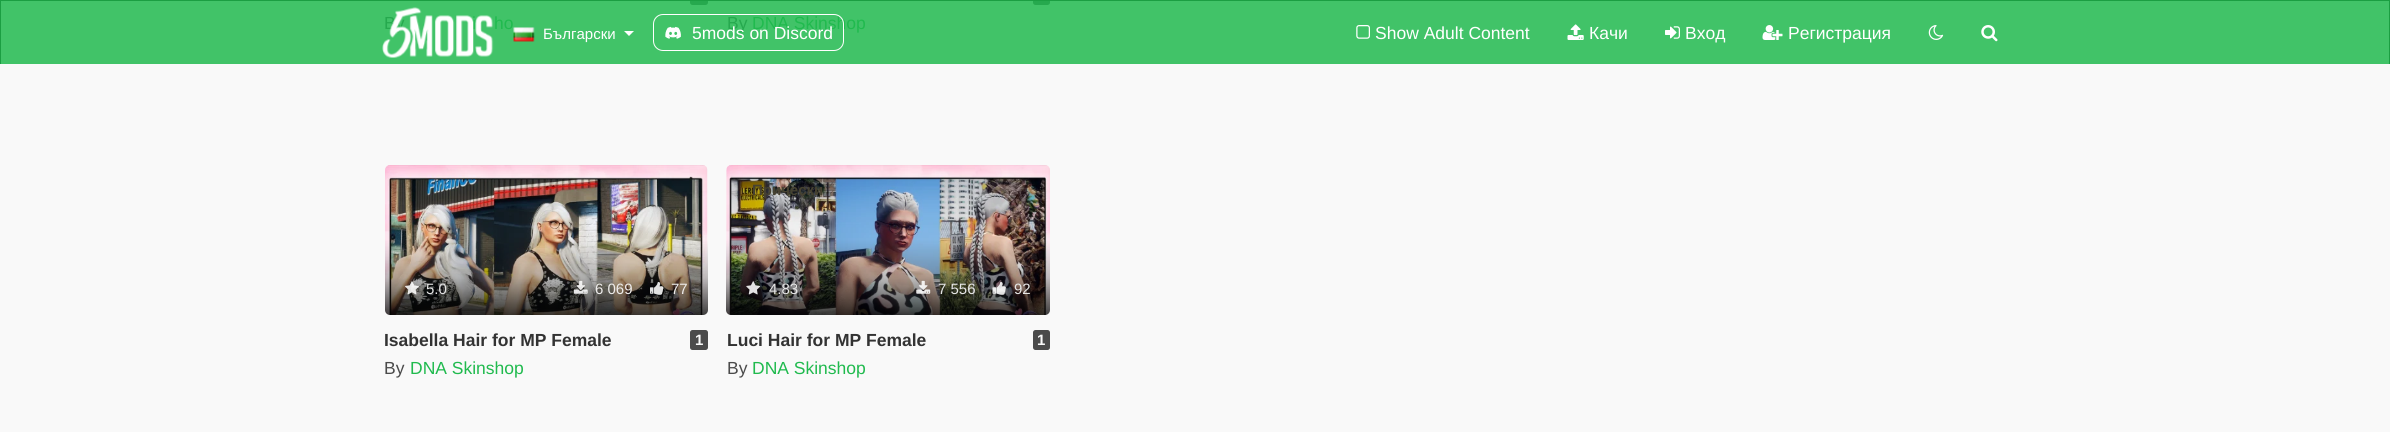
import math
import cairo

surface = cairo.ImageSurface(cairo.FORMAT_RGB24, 2390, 432)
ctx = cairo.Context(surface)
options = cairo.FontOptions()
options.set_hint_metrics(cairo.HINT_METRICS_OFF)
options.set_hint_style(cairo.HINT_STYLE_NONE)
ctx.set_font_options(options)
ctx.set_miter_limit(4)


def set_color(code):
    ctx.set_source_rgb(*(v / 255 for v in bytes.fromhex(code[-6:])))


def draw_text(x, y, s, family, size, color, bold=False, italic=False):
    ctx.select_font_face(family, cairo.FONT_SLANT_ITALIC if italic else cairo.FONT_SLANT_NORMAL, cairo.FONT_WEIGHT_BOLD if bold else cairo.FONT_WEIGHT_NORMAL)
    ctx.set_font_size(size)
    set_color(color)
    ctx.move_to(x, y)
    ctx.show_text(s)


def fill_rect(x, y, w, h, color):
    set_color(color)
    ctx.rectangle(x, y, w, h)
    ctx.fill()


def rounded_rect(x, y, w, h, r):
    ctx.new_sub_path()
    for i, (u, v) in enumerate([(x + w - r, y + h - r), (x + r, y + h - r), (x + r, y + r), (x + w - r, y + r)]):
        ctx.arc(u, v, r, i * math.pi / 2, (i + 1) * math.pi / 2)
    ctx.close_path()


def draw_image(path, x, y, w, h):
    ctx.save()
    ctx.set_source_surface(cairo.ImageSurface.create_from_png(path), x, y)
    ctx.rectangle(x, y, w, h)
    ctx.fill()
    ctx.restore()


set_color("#f9f9f9")
ctx.paint()
fill_rect(1, 1, 2388, 63, "#41c368")
set_color("#26a94e")
rounded_rect(690, -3, 18, 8, 2.5)
ctx.fill()
draw_text(384, 29, "By", "Liberation Sans", 17.5, "#26a94e")
draw_text(472, 29, "i", "Liberation Sans", 17.5, "#20ba4e")
draw_text(494, 29, "ho", "Liberation Sans", 17.5, "#20ba4e")
set_color("#26a94e")
rounded_rect(1033, -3, 17, 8, 2.5)
ctx.fill()
draw_text(727, 29, "By", "Liberation Sans", 17.5, "#26a94e")
draw_text(752, 29, "DNA Skinshop", "Liberation Sans", 17.5, "#20ba4e")
draw_image("assets/img1.png", 385, 165, 323, 150)
gradient = cairo.LinearGradient(546, 165, 546, 315)
gradient.add_color_stop_rgba(0.5, 0, 0, 0, 0)
gradient.add_color_stop_rgba(0.75, 0, 0, 0, 0.25)
gradient.add_color_stop_rgba(1, 0, 0, 0, 0.75)
ctx.set_source(gradient)
rounded_rect(385, 165, 323, 150, 5)
ctx.fill()
draw_image("assets/img2.png", 405, 281, 14, 14)
draw_text(426, 294, "5.0", "Liberation Sans", 15, "#e6e6e6")
draw_image("assets/img3.png", 573, 280, 15, 14)
draw_text(595, 294, "6 069", "Liberation Sans", 15, "#eeeceb")
draw_image("assets/img4.png", 650, 282, 14, 13)
draw_text(671, 294, "77", "Liberation Sans", 15, "#eeeceb")
draw_text(384, 346, "Isabella Hair for MP Female", "Liberation Sans", 17.5, "#333333", bold=True)
set_color("#4b4b4b")
rounded_rect(690, 330, 18, 20, 2.5)
ctx.fill()
draw_text(695, 345, "1", "Liberation Sans", 15, "#f9f9f9", bold=True)
draw_text(384, 374, "By", "Liberation Sans", 17.5, "#4b4b4b")
draw_text(410, 374, "DNA Skinshop", "Liberation Sans", 17.5, "#20ba4e")
draw_image("assets/img5.png", 726, 165, 324, 150)
gradient = cairo.LinearGradient(888, 165, 888, 315)
gradient.add_color_stop_rgba(0.5, 0, 0, 0, 0)
gradient.add_color_stop_rgba(0.75, 0, 0, 0, 0.25)
gradient.add_color_stop_rgba(1, 0, 0, 0, 0.75)
ctx.set_source(gradient)
rounded_rect(726, 165, 324, 150, 5)
ctx.fill()
draw_text(752, 195, "Прически", "Liberation Sans", 15, "#464231", bold=True)
draw_image("assets/img6.png", 746, 281, 15, 14)
draw_text(769, 294, "4.83", "Liberation Sans", 15, "#e6e6e6")
draw_image("assets/img7.png", 916, 280, 15, 14)
draw_text(938, 294, "7 556", "Liberation Sans", 15, "#e6e6e6")
draw_image("assets/img8.png", 992, 282, 14, 13)
draw_text(1014, 294, "92", "Liberation Sans", 15, "#e6e6e6")
draw_text(727, 346, "Luci Hair for MP Female", "Liberation Sans", 17.5, "#333333", bold=True)
set_color("#4b4b4b")
rounded_rect(1033, 330, 17, 20, 2.5)
ctx.fill()
draw_text(1037, 345, "1", "Liberation Sans", 15, "#f9f9f9", bold=True)
draw_text(727, 374, "By", "Liberation Sans", 17.5, "#4b4b4b")
draw_text(752, 374, "DNA Skinshop", "Liberation Sans", 17.5, "#20ba4e")
fill_rect(0, 0, 2390, 1, "#1b9e42")
fill_rect(2389, 0, 1, 64, "#1b9e42")
fill_rect(0, 0, 1, 64, "#1b9e42")
draw_image("assets/img9.png", 382, 7, 112, 51)
draw_image("assets/img10.png", 513, 27, 22, 15)
draw_text(543, 39, "Български", "Liberation Sans", 15, "#ffffff")
ctx.new_path()
ctx.move_to(624, 31)
ctx.line_to(634, 31)
ctx.line_to(629, 36)
ctx.close_path()
ctx.fill()
rounded_rect(653.5, 14.5, 190, 36, 9.5)
ctx.set_line_width(1)
ctx.stroke()
draw_image("assets/img11.png", 665, 26, 16, 13)
draw_text(692, 39, "5mods on Discord", "Liberation Sans", 17.5, "#ffffff")
draw_image("assets/img12.png", 1356, 25, 14, 14)
draw_text(1375, 39, "Show Adult Content", "Liberation Sans", 17.5, "#ffffff")
draw_image("assets/img13.png", 1567, 24, 17, 16)
draw_text(1589, 39, "Качи", "Liberation Sans", 17.5, "#ffffff")
draw_image("assets/img14.png", 1665, 26, 15, 13)
draw_text(1685, 39, "Вход", "Liberation Sans", 17.5, "#ffffff")
draw_image("assets/img15.png", 1762, 25, 21, 15)
draw_text(1788, 39, "Регистрация", "Liberation Sans", 17.5, "#ffffff")
draw_image("assets/img16.png", 1928, 25, 16, 15)
draw_image("assets/img17.png", 1981, 25, 17, 17)
surface.write_to_png("output.png")
